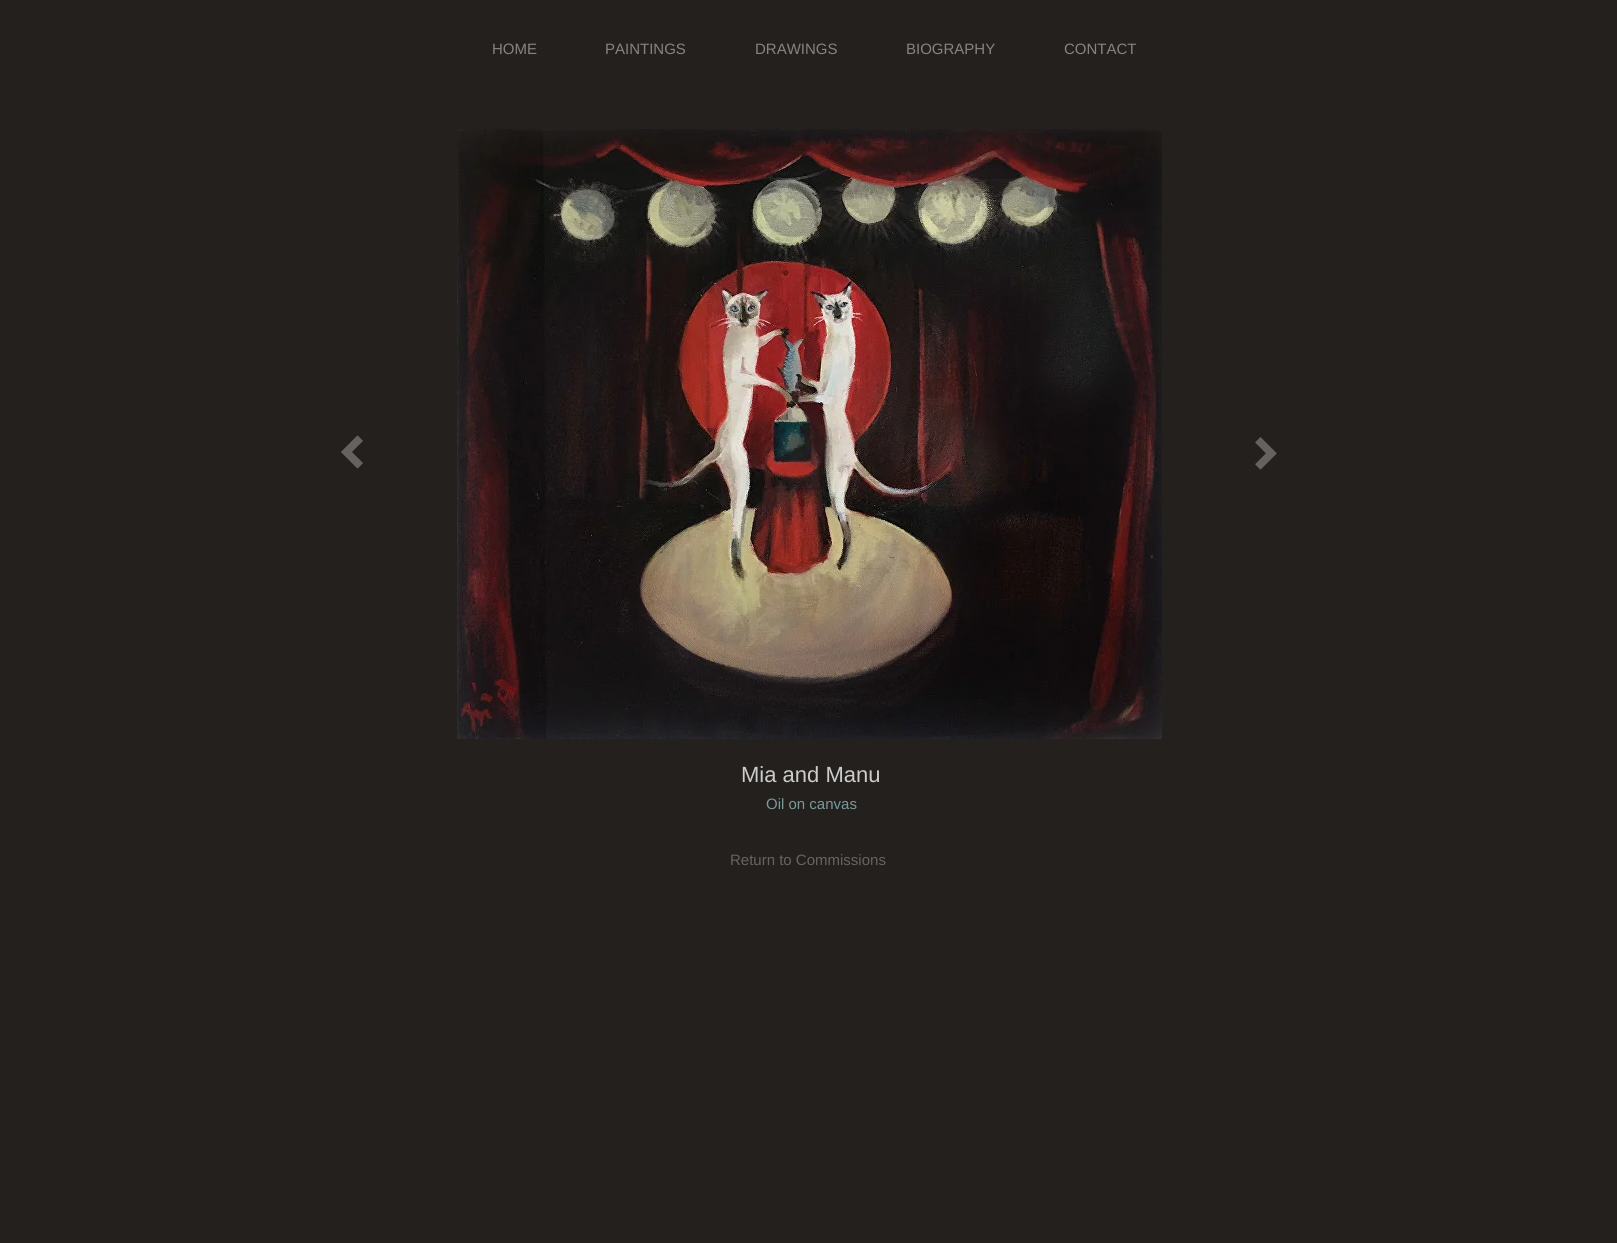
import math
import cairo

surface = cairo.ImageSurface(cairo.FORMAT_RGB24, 1617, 1243)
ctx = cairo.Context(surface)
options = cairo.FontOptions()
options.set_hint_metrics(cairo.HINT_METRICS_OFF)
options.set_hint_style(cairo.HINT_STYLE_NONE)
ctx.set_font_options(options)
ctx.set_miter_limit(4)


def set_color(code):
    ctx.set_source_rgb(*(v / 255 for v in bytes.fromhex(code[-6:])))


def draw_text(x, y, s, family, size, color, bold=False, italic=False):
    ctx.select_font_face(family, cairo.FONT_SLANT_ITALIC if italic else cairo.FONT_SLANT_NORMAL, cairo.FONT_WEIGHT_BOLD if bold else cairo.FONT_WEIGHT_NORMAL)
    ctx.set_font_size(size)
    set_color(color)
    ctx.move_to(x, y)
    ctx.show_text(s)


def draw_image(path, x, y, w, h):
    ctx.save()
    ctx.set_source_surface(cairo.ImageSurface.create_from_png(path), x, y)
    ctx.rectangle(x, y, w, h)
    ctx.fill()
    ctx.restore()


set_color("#24201d")
ctx.paint()
draw_text(492, 54, "HOME", "Liberation Sans", 15, "#858483")
draw_text(605, 54, "PAINTINGS", "Liberation Sans", 15, "#858483")
draw_text(755, 54, "DRAWINGS", "Liberation Sans", 15, "#858483")
draw_text(906, 54, "BIOGRAPHY", "Liberation Sans", 15, "#858483")
draw_text(1064, 54, "CONTACT", "Liberation Sans", 15, "#858483")
draw_image("assets/img1.png", 341, 435, 22, 34)
draw_image("assets/img2.png", 457, 129, 705, 610)
draw_image("assets/img3.png", 1255, 437, 22, 33)
draw_text(741, 782, "Mia and Manu", "Liberation Sans", 22, "#cccccc")
draw_text(766, 809, "Oil on canvas", "Liberation Sans", 15, "#779a99")
draw_text(730, 865, "Return to Commissions", "Liberation Sans", 15, "#666361")
surface.write_to_png("output.png")
